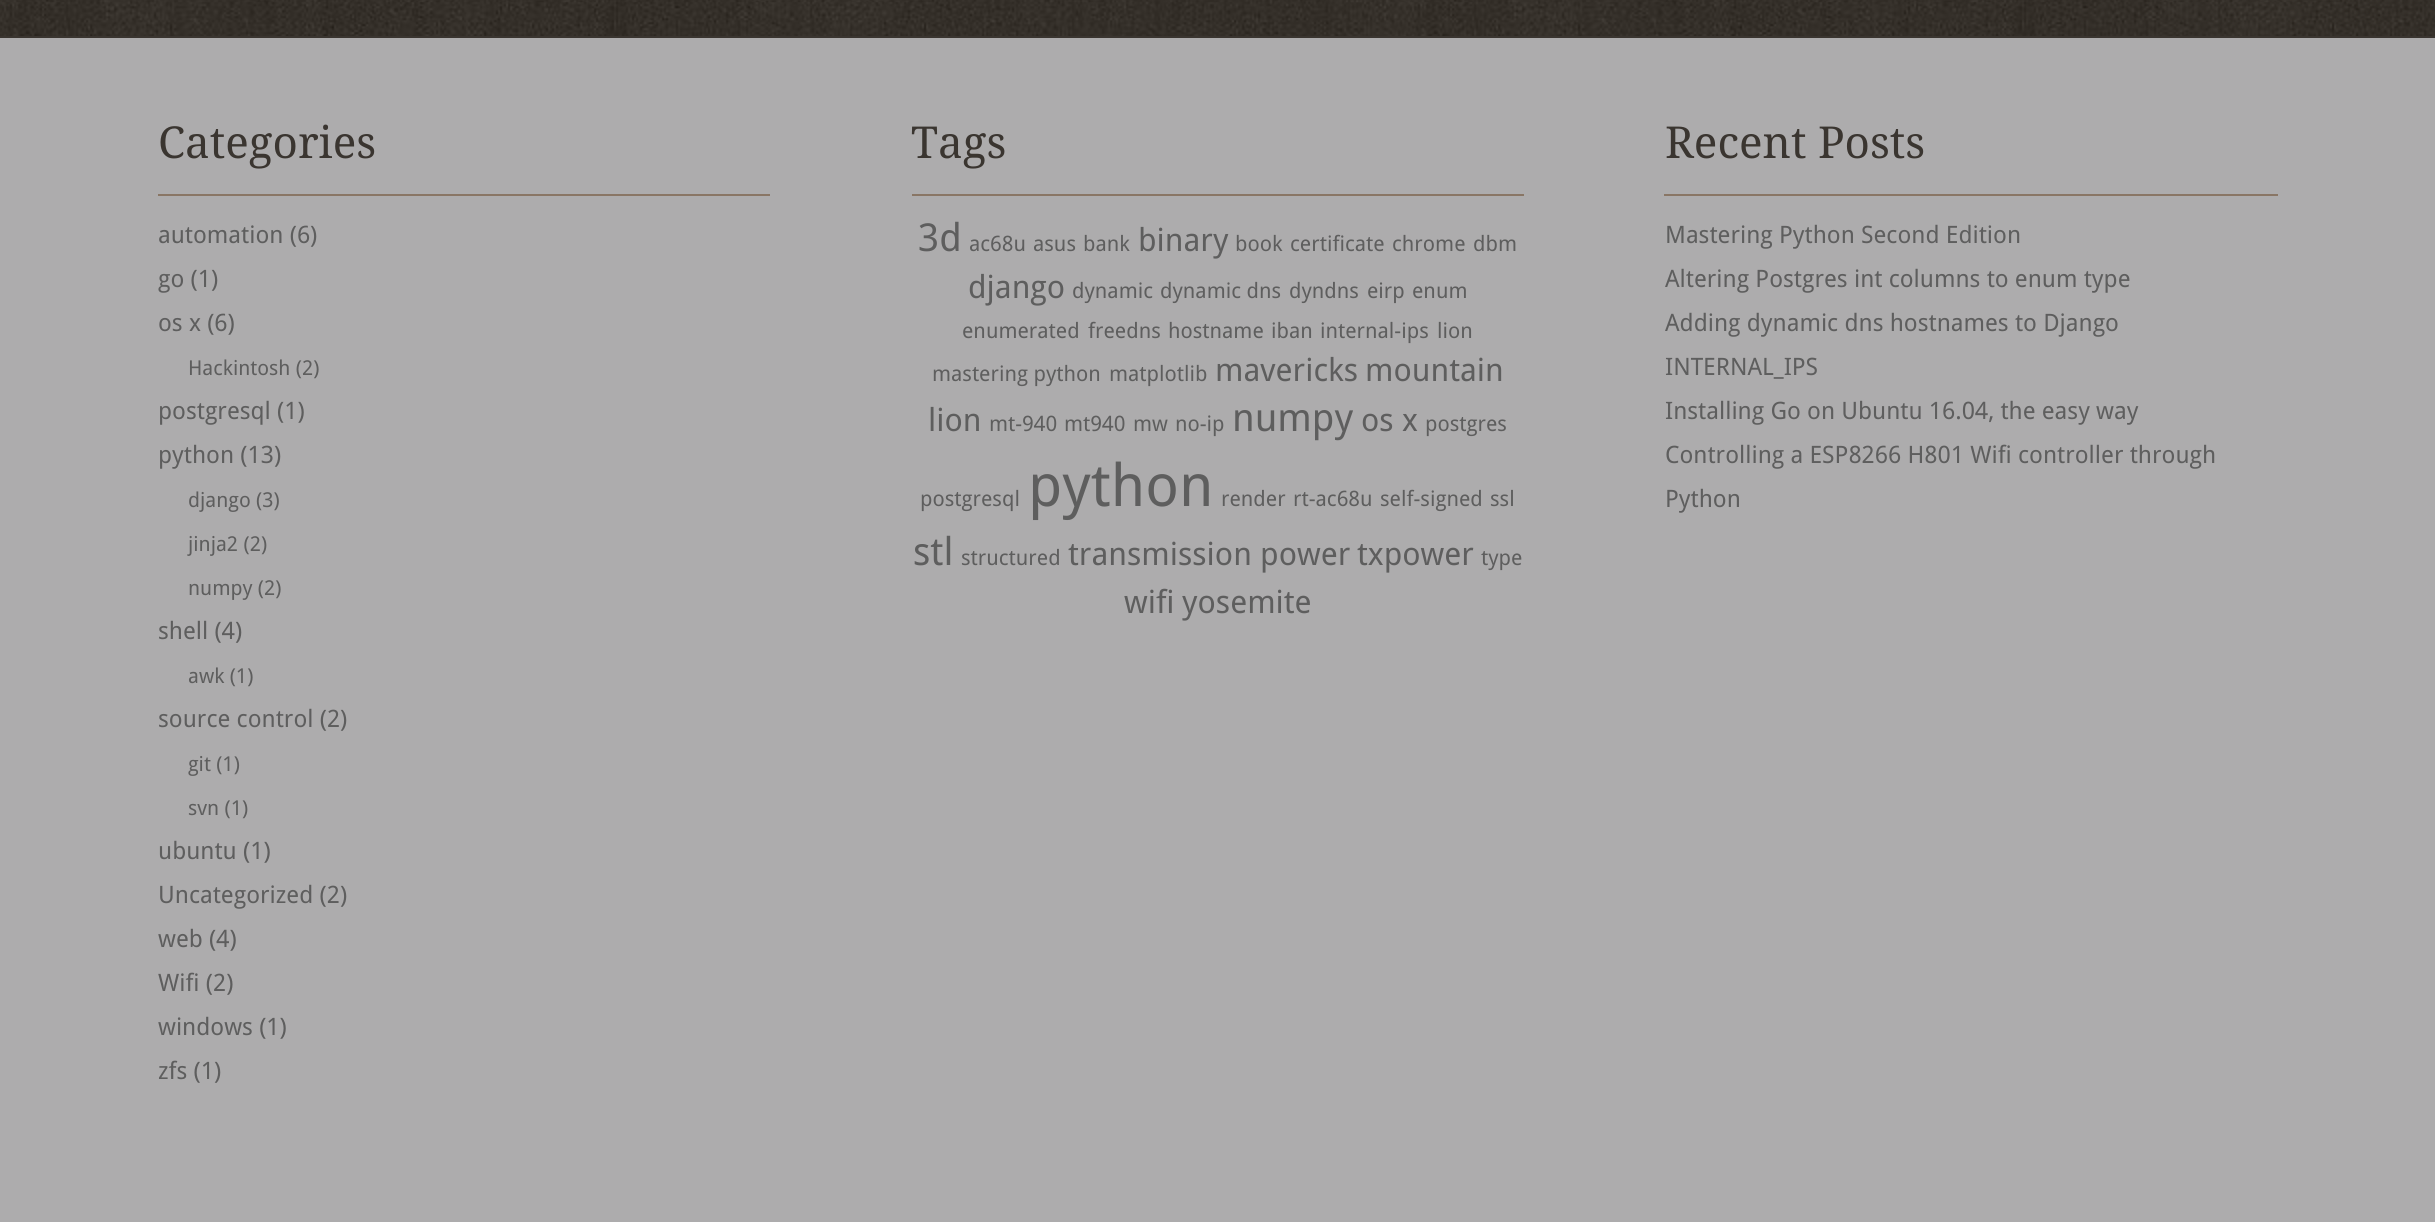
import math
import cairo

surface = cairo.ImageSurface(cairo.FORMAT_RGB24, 2435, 1222)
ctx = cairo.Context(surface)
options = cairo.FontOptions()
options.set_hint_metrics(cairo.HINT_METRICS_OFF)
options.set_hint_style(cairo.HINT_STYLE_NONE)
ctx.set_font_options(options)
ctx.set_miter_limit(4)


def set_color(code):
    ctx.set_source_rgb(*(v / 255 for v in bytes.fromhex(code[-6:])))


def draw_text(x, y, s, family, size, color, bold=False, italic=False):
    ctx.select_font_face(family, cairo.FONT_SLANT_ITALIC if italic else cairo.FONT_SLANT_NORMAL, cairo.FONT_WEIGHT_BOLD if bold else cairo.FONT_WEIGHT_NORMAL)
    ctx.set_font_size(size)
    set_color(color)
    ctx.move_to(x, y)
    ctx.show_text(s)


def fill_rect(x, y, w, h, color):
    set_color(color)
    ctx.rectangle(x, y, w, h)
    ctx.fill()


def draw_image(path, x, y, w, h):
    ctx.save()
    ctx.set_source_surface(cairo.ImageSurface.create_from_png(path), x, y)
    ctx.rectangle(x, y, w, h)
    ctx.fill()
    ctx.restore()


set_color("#adacad")
ctx.paint()
draw_image("assets/img1.png", 0, 0, 2435, 36)
fill_rect(0, 36, 2435, 2, "#3a3530")
fill_rect(158, 194, 612, 2, "#897665")
draw_text(158, 158, "Categories", "Droid Serif", 44, "#3a3530")
draw_text(158, 243, "automation (6)", "Droid Sans", 24, "#5e5e5e")
draw_text(158, 287, "go (1)", "Droid Sans", 24, "#5e5e5e")
draw_text(158, 331, "os x (6)", "Droid Sans", 24, "#5e5e5e")
draw_text(188, 375, "Hackintosh (2)", "Droid Sans", 20.5, "#5e5e5e")
draw_text(158, 419, "postgresql (1)", "Droid Sans", 24, "#5e5e5e")
draw_text(158, 463, "python (13)", "Droid Sans", 24, "#5e5e5e")
draw_text(188, 507, "django (3)", "Droid Sans", 20.5, "#5e5e5e")
draw_text(188, 551, "jinja2 (2)", "Droid Sans", 20.5, "#5e5e5e")
draw_text(188, 595, "numpy (2)", "Droid Sans", 20.5, "#5e5e5e")
draw_text(158, 639, "shell (4)", "Droid Sans", 24, "#5e5e5e")
draw_text(188, 683, "awk (1)", "Droid Sans", 20.5, "#5e5e5e")
draw_text(158, 727, "source control (2)", "Droid Sans", 24, "#5e5e5e")
draw_text(188, 771, "git (1)", "Droid Sans", 20.5, "#5e5e5e")
draw_text(188, 815, "svn (1)", "Droid Sans", 20.5, "#5e5e5e")
draw_text(158, 859, "ubuntu (1)", "Droid Sans", 24, "#5e5e5e")
draw_text(158, 903, "Uncategorized (2)", "Droid Sans", 24, "#5e5e5e")
draw_text(158, 947, "web (4)", "Droid Sans", 24, "#5e5e5e")
draw_text(158, 991, "Wifi (2)", "Droid Sans", 24, "#5e5e5e")
draw_text(158, 1035, "windows (1)", "Droid Sans", 24, "#5e5e5e")
draw_text(158, 1079, "zfs (1)", "Droid Sans", 24, "#5e5e5e")
fill_rect(912, 194, 612, 2, "#897665")
draw_text(911, 158, "Tags", "Droid Serif", 44, "#3a3530")
draw_text(918, 251, "3d", "Droid Sans", 38.5, "#5e5e5e")
draw_text(969, 251, "ac68u", "Droid Sans", 21.25, "#5e5e5e")
draw_text(1033, 251, "asus", "Droid Sans", 21.25, "#5e5e5e")
draw_text(1083, 251, "bank", "Droid Sans", 21.25, "#5e5e5e")
draw_text(1138, 251, "binary", "Droid Sans", 31.75, "#5e5e5e")
draw_text(1235, 251, "book", "Droid Sans", 21.25, "#5e5e5e")
draw_text(1290, 251, "certificate", "Droid Sans", 21.25, "#5e5e5e")
draw_text(1392, 251, "chrome", "Droid Sans", 21.25, "#5e5e5e")
draw_text(1473, 251, "dbm", "Droid Sans", 21.25, "#5e5e5e")
draw_text(968, 298, "django", "Droid Sans", 31.75, "#5e5e5e")
draw_text(1072, 298, "dynamic", "Droid Sans", 21.25, "#5e5e5e")
draw_text(1160, 298, "dynamic dns", "Droid Sans", 21.25, "#5e5e5e")
draw_text(1289, 298, "dyndns", "Droid Sans", 21.25, "#5e5e5e")
draw_text(1367, 298, "eirp", "Droid Sans", 21.25, "#5e5e5e")
draw_text(1412, 298, "enum", "Droid Sans", 21.25, "#5e5e5e")
draw_text(962, 338, "enumerated", "Droid Sans", 21.25, "#5e5e5e")
draw_text(1088, 338, "freedns", "Droid Sans", 21.25, "#5e5e5e")
draw_text(1168, 338, "hostname", "Droid Sans", 21.25, "#5e5e5e")
draw_text(1271, 338, "iban", "Droid Sans", 21.25, "#5e5e5e")
draw_text(1320, 338, "internal-ips", "Droid Sans", 21.25, "#5e5e5e")
draw_text(1437, 338, "lion", "Droid Sans", 21.25, "#5e5e5e")
draw_text(932, 381, "mastering python", "Droid Sans", 21.25, "#5e5e5e")
draw_text(1109, 381, "matplotlib", "Droid Sans", 21.25, "#5e5e5e")
draw_text(1215, 381, "mavericks", "Droid Sans", 31.75, "#5e5e5e")
draw_text(1365, 381, "mountain", "Droid Sans", 31.75, "#5e5e5e")
draw_text(928, 431, "lion", "Droid Sans", 31.75, "#5e5e5e")
draw_text(989, 431, "mt-940", "Droid Sans", 21.25, "#5e5e5e")
draw_text(1064, 431, "mt940", "Droid Sans", 21.25, "#5e5e5e")
draw_text(1133, 431, "mw", "Droid Sans", 21.25, "#5e5e5e")
draw_text(1175, 431, "no-ip", "Droid Sans", 21.25, "#5e5e5e")
draw_text(1232, 431, "numpy", "Droid Sans", 38.5, "#5e5e5e")
draw_text(1361, 431, "os x", "Droid Sans", 31.75, "#5e5e5e")
draw_text(1425, 431, "postgres", "Droid Sans", 21.25, "#5e5e5e")
draw_text(920, 506, "postgresql", "Droid Sans", 21.25, "#5e5e5e")
draw_text(1028, 506, "python", "Droid Sans", 58.5, "#5e5e5e")
draw_text(1221, 506, "render", "Droid Sans", 21.25, "#5e5e5e")
draw_text(1293, 506, "rt-ac68u", "Droid Sans", 21.25, "#5e5e5e")
draw_text(1380, 506, "self-signed", "Droid Sans", 21.25, "#5e5e5e")
draw_text(1490, 506, "ssl", "Droid Sans", 21.25, "#5e5e5e")
draw_text(913, 565, "stl", "Droid Sans", 38.5, "#5e5e5e")
draw_text(961, 565, "structured", "Droid Sans", 21.25, "#5e5e5e")
draw_text(1068, 565, "transmission power", "Droid Sans", 31.75, "#5e5e5e")
draw_text(1357, 565, "txpower", "Droid Sans", 31.75, "#5e5e5e")
draw_text(1481, 565, "type", "Droid Sans", 21.25, "#5e5e5e")
draw_text(1124, 613, "wifi", "Droid Sans", 31.75, "#5e5e5e")
draw_text(1182, 613, "yosemite", "Droid Sans", 31.75, "#5e5e5e")
fill_rect(1664, 194, 614, 2, "#897665")
draw_text(1665, 158, "Recent Posts", "Droid Serif", 44, "#3a3530")
draw_text(1665, 243, "Mastering Python Second Edition", "Droid Sans", 24, "#5e5e5e")
draw_text(1665, 287, "Altering Postgres int columns to enum type", "Droid Sans", 24, "#5e5e5e")
draw_text(1665, 331, "Adding dynamic dns hostnames to Django", "Droid Sans", 24, "#5e5e5e")
draw_text(1665, 375, "INTERNAL_IPS", "Droid Sans", 24, "#5e5e5e")
draw_text(1665, 419, "Installing Go on Ubuntu 16.04, the easy way", "Droid Sans", 24, "#5e5e5e")
draw_text(1665, 463, "Controlling a ESP8266 H801 Wifi controller through", "Droid Sans", 24, "#5e5e5e")
draw_text(1665, 507, "Python", "Droid Sans", 24, "#5e5e5e")
surface.write_to_png("output.png")
